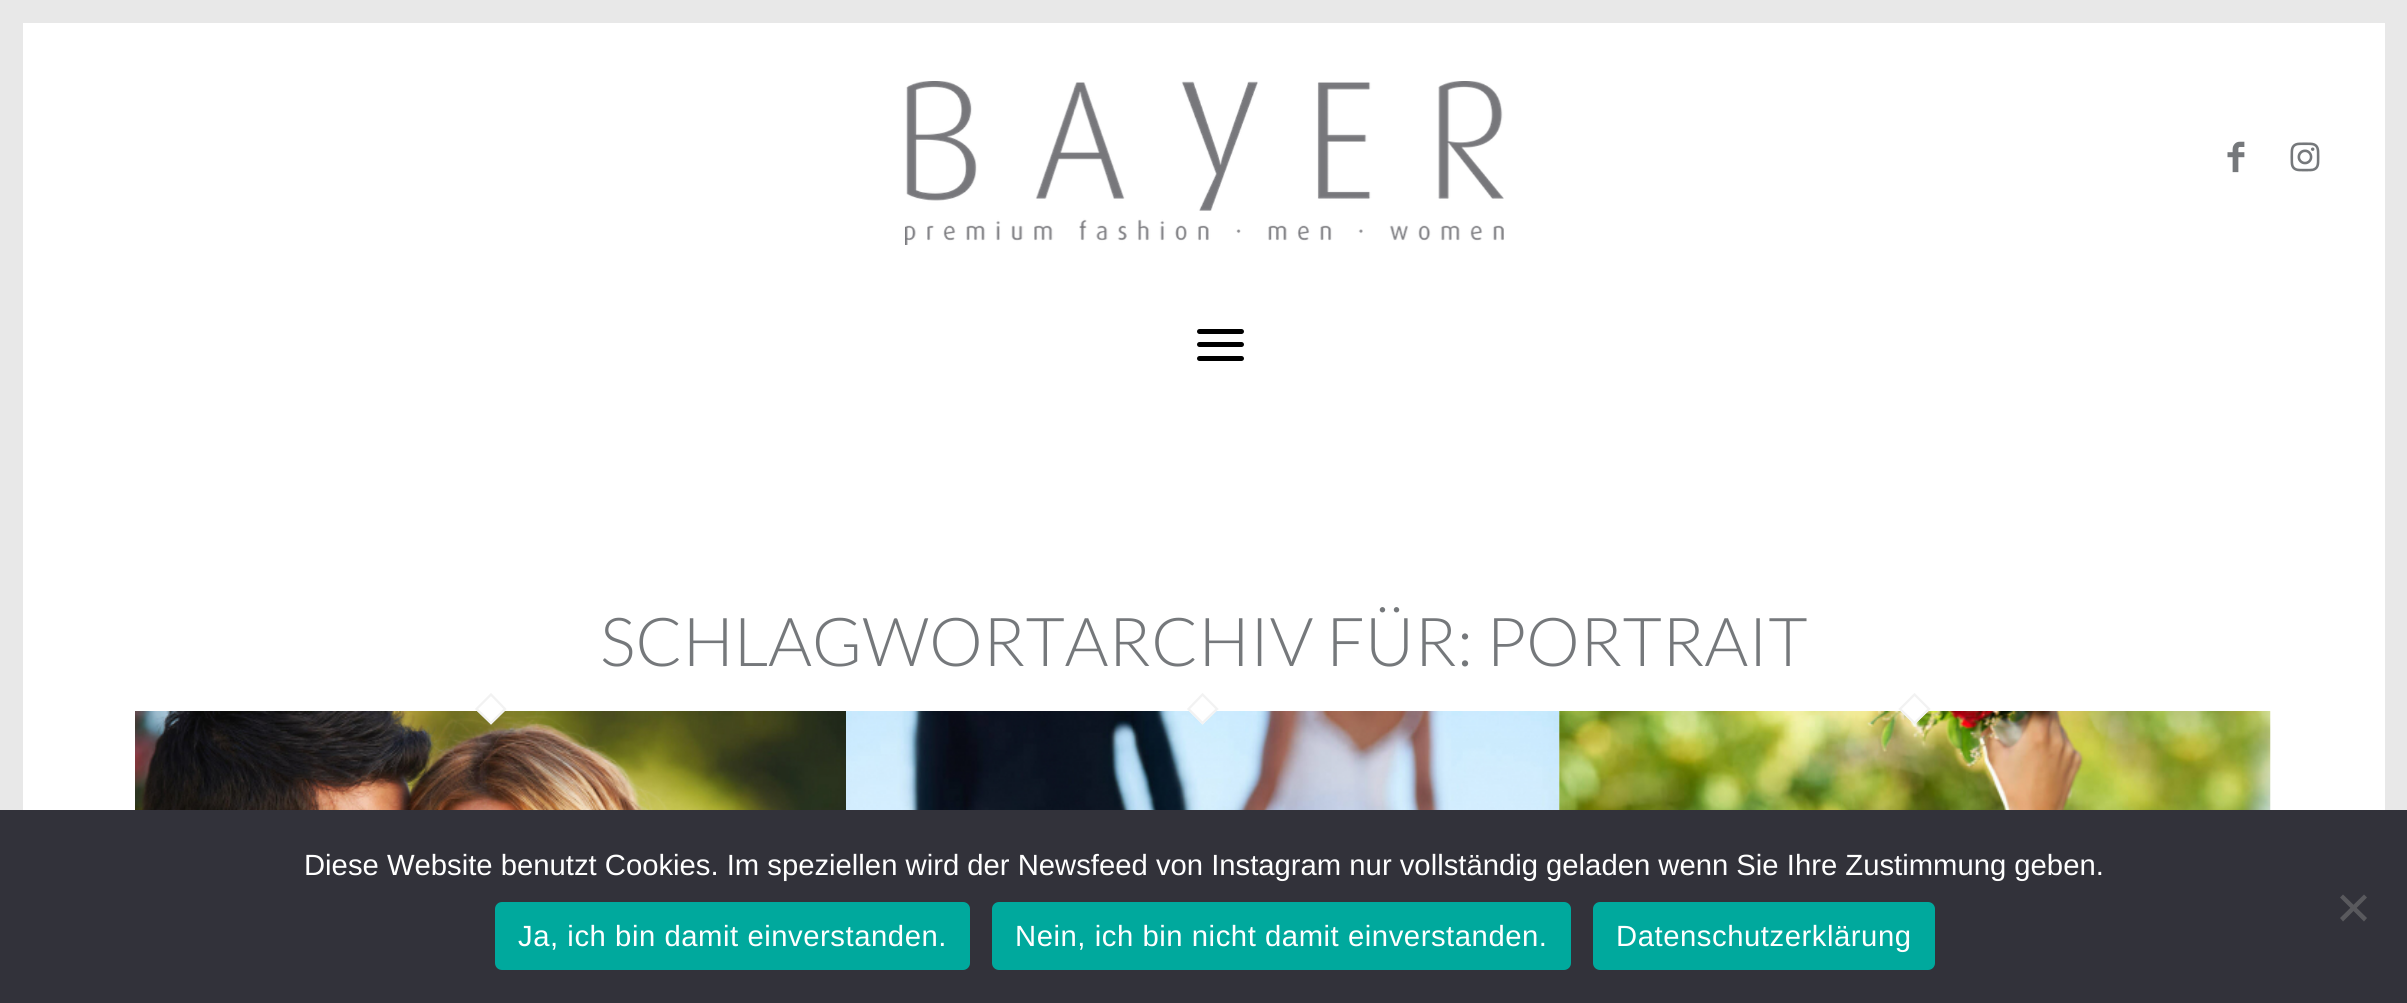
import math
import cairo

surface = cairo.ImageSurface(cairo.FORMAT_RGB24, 2407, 1003)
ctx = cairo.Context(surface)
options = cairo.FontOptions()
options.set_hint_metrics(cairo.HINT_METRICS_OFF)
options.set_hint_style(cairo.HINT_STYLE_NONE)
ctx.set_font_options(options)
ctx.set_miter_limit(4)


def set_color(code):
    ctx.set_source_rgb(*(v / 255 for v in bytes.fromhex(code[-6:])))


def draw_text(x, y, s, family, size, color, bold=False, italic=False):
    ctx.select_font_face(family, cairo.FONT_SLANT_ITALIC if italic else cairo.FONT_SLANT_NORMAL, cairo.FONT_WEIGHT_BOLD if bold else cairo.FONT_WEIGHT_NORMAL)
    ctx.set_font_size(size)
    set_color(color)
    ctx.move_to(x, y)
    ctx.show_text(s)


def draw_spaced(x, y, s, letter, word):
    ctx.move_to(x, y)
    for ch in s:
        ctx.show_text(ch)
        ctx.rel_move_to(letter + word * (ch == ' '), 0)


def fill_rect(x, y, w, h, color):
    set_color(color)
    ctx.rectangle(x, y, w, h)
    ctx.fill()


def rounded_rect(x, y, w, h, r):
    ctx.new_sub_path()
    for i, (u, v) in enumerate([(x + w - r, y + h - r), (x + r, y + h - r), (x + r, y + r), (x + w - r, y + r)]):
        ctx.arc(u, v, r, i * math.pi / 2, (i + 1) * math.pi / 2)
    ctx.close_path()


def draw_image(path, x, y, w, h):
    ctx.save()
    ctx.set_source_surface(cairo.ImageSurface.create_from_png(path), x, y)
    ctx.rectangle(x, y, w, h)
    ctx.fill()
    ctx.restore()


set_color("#ffffff")
ctx.paint()
fill_rect(0, 0, 23, 810, "#e8e8e8")
fill_rect(23, 0, 2362, 23, "#e8e8e8")
fill_rect(2385, 0, 22, 810, "#e8e8e8")
draw_image("assets/img1.png", 905, 81, 599, 164)
draw_image("assets/img2.png", 2227, 141, 18, 32)
draw_image("assets/img3.png", 2290, 142, 30, 30)
set_color("#000000")
rounded_rect(1197, 342, 47, 5, 2.5)
ctx.fill()
rounded_rect(1197, 329, 47, 5, 2.5)
ctx.fill()
rounded_rect(1197, 356, 47, 5, 2.5)
ctx.fill()
draw_text(600, 666, "SCHLAGWORTARCHIV FÜR: PORTRAIT", "Lato Light", 67.5, "#75787b")
draw_image("assets/img4.png", 135, 711, 711, 99)
set_color("#ffffff")
ctx.new_path()
ctx.move_to(491, 693)
ctx.line_to(507, 709)
ctx.line_to(491, 724.5)
ctx.line_to(475, 709)
ctx.close_path()
ctx.fill()
ctx.new_path()
ctx.move_to(491, 694.5)
ctx.line_to(505, 709)
ctx.line_to(491, 723)
ctx.line_to(476.5, 709)
ctx.close_path()
set_color("#f2f2f2")
ctx.set_line_width(2.3)
ctx.stroke()
draw_image("assets/img5.png", 846, 711, 714, 99)
set_color("#ffffff")
ctx.new_path()
ctx.move_to(1202.5, 693)
ctx.line_to(1218.5, 709)
ctx.line_to(1202.5, 724.5)
ctx.line_to(1187, 709)
ctx.close_path()
ctx.fill()
ctx.new_path()
ctx.move_to(1202.5, 694.5)
ctx.line_to(1217, 709)
ctx.line_to(1202.5, 723)
ctx.line_to(1188.5, 709)
ctx.close_path()
set_color("#f2f2f2")
ctx.stroke()
draw_image("assets/img6.png", 1559, 711, 712, 99)
set_color("#ffffff")
ctx.new_path()
ctx.move_to(1914.5, 693)
ctx.line_to(1930.5, 709)
ctx.line_to(1914.5, 724.5)
ctx.line_to(1898.5, 709)
ctx.close_path()
ctx.fill()
ctx.new_path()
ctx.move_to(1914.5, 694.5)
ctx.line_to(1929, 709)
ctx.line_to(1914.5, 723)
ctx.line_to(1900, 709)
ctx.close_path()
set_color("#f2f2f2")
ctx.stroke()
fill_rect(0, 810, 2407, 193, "#32323a")
draw_text(304, 875, "Diese Website benutzt Cookies. Im speziellen wird der Newsfeed von Instagram nur vollständig geladen wenn Sie Ihre Zustimmung geben.", "Liberation Sans", 29.25, "#ffffff")
set_color("#59595d")
ctx.new_path()
ctx.move_to(2364, 894.5)
ctx.line_to(2367, 897.5)
ctx.line_to(2343, 921.5)
ctx.line_to(2340, 918)
ctx.close_path()
ctx.fill()
ctx.new_path()
ctx.move_to(2340, 897.5)
ctx.line_to(2343, 894.5)
ctx.line_to(2367, 918)
ctx.line_to(2364, 921.5)
ctx.close_path()
ctx.fill()
set_color("#00a99d")
rounded_rect(495, 902, 475, 68, 7)
ctx.fill()
set_color("#ffffff")
draw_spaced(518, 946, "Ja, ich bin damit einverstanden.", 0.55, 0)
set_color("#00a99d")
rounded_rect(992, 902, 579, 68, 7)
ctx.fill()
set_color("#ffffff")
draw_spaced(1015, 946, "Nein, ich bin nicht damit einverstanden.", 0.55, 0)
set_color("#00a99d")
rounded_rect(1593, 902, 342, 68, 7)
ctx.fill()
set_color("#ffffff")
draw_spaced(1616, 946, "Datenschutzerklärung", 0.55, 0)
surface.write_to_png("output.png")
